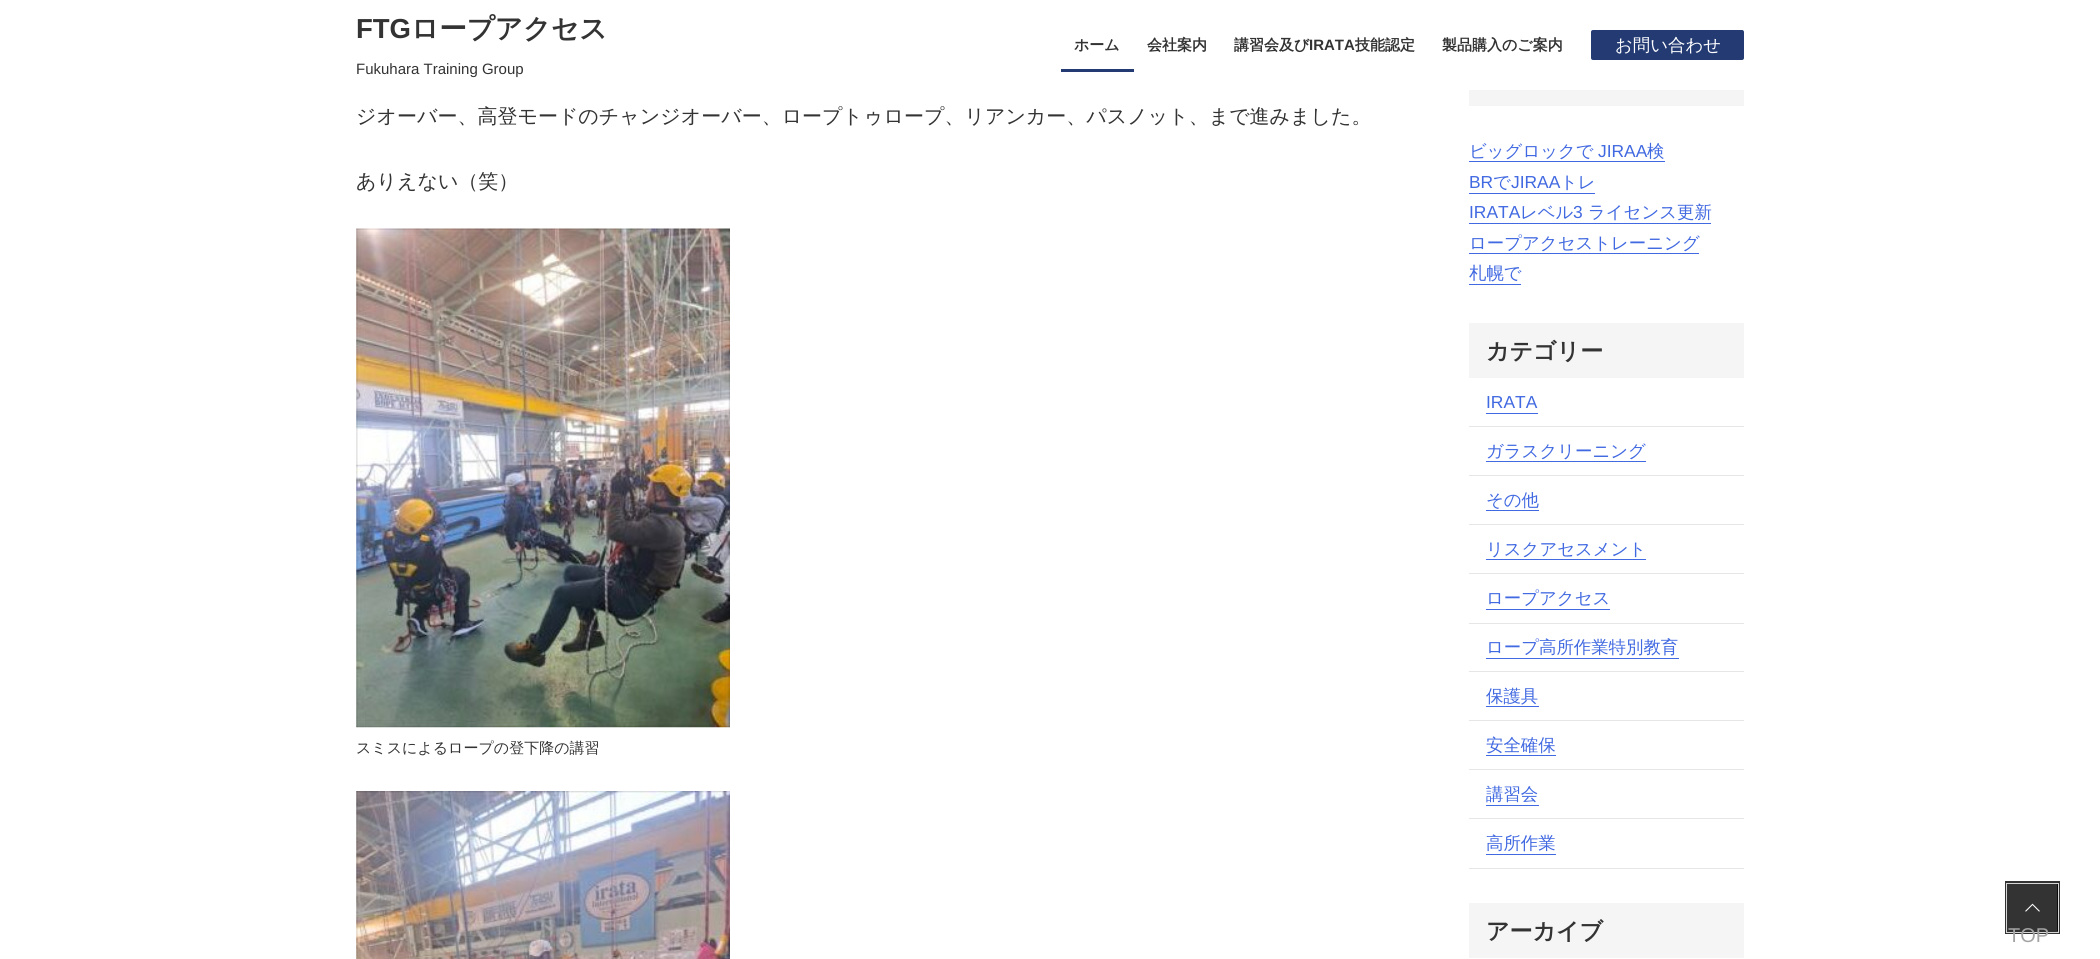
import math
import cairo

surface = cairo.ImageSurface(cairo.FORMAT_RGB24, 2100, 959)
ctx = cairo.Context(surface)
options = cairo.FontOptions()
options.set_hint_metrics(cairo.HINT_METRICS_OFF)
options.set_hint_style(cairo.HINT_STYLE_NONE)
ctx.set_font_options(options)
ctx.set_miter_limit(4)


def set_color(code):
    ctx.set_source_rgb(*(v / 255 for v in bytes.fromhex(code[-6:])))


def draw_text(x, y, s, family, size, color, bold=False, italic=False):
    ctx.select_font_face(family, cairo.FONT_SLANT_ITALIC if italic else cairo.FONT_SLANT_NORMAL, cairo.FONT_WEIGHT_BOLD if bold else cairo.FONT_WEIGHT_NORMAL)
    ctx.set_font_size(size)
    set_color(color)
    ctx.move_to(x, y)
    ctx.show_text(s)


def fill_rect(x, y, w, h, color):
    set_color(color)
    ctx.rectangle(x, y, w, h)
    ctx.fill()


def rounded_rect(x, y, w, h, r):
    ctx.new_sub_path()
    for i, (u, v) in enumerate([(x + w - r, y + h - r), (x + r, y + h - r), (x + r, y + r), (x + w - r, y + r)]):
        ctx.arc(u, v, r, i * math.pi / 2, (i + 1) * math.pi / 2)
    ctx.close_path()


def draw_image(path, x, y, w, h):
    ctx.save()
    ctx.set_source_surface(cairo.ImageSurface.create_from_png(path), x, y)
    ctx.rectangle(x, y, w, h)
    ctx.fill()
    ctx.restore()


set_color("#ffffff")
ctx.paint()
draw_text(356, 38, "FTG", "Liberation Sans", 27.5, "#333333", bold=True)
draw_text(411, 38, "ロープアクセス", "WenQuanYi Zen Hei", 27.5, "#333333", bold=True)
draw_text(356, 74, "Fukuhara Training Group", "Liberation Sans", 15, "#333333")
draw_text(1074, 50, "ホーム", "WenQuanYi Zen Hei", 15, "#333333", bold=True)
fill_rect(1061, 69, 73, 3, "#233a73")
draw_text(1147, 50, "会社案内", "WenQuanYi Zen Hei", 15, "#333333", bold=True)
draw_text(1234, 50, "講習会及び", "WenQuanYi Zen Hei", 15, "#333333", bold=True)
draw_text(1309, 50, "IRATA", "Liberation Sans", 15, "#333333", bold=True)
draw_text(1355, 50, "技能認定", "WenQuanYi Zen Hei", 15, "#333333", bold=True)
draw_text(1442, 50, "製品購入のご案内", "WenQuanYi Zen Hei", 15, "#333333", bold=True)
set_color("#233a73")
rounded_rect(1591, 30, 153, 30, 2)
ctx.fill()
draw_text(1615, 51, "お問い合わせ", "WenQuanYi Zen Hei Medium", 17.4, "#ffffff")
draw_text(356, 123, "ジオーバー、高登モードのチャンジオーバー、ロープトゥロープ、リアンカー、パスノット、まで進みました。", "WenQuanYi Zen Hei Medium", 20, "#333333")
draw_text(356, 188, "ありえない（笑）", "WenQuanYi Zen Hei Medium", 20, "#333333")
draw_image("assets/img1.png", 356, 228, 374, 500)
draw_text(356, 753, "スミスによるロープの登下降の講習", "WenQuanYi Zen Hei Medium", 15, "#333333")
draw_image("assets/img2.png", 356, 791, 374, 168)
fill_rect(1469, 90, 275, 16, "#f5f5f5")
draw_text(1469, 157, "ビッグロックで", "WenQuanYi Zen Hei Medium", 17.4, "#4169e1")
fill_rect(1469, 161, 196, 1, "#4169e1")
draw_text(1598, 157, "JIRAA", "Liberation Sans", 17.4, "#4169e1")
draw_text(1647, 157, "検", "WenQuanYi Zen Hei Medium", 17.4, "#4169e1")
draw_text(1469, 188, "BR", "Liberation Sans", 17.4, "#4169e1")
draw_text(1493, 188, "で", "WenQuanYi Zen Hei Medium", 17.4, "#4169e1")
fill_rect(1469, 193, 126, 1, "#4169e1")
draw_text(1511, 188, "JIRAA", "Liberation Sans", 17.4, "#4169e1")
draw_text(1560, 188, "トレ", "WenQuanYi Zen Hei Medium", 17.4, "#4169e1")
draw_text(1469, 218, "IRATA", "Liberation Sans", 17.4, "#4169e1")
draw_text(1520, 218, "レベル", "WenQuanYi Zen Hei Medium", 17.4, "#4169e1")
fill_rect(1469, 223, 242, 1, "#4169e1")
draw_text(1573, 218, "3", "Liberation Sans", 17.4, "#4169e1")
draw_text(1588, 218, "ライセンス更新", "WenQuanYi Zen Hei Medium", 17.4, "#4169e1")
draw_text(1469, 249, "ロープアクセストレーニング", "WenQuanYi Zen Hei Medium", 17.4, "#4169e1")
fill_rect(1469, 253, 230, 1, "#4169e1")
draw_text(1469, 279, "札幌で", "WenQuanYi Zen Hei Medium", 17.4, "#4169e1")
fill_rect(1469, 284, 52, 1, "#4169e1")
fill_rect(1469, 323, 275, 55, "#f5f5f5")
draw_text(1486, 359, "カテゴリー", "WenQuanYi Zen Hei", 23, "#333333", bold=True)
fill_rect(1469, 426, 275, 1, "#e6e6e6")
draw_text(1486, 408, "IRATA", "Liberation Sans", 17.4, "#4169e1")
fill_rect(1486, 413, 52, 1, "#4169e1")
fill_rect(1469, 475, 275, 1, "#e6e6e6")
draw_text(1486, 457, "ガラスクリーニング", "WenQuanYi Zen Hei Medium", 17.4, "#4169e1")
fill_rect(1486, 461, 160, 1, "#4169e1")
fill_rect(1469, 524, 275, 1, "#e6e6e6")
draw_text(1486, 506, "その他", "WenQuanYi Zen Hei Medium", 17.4, "#4169e1")
fill_rect(1486, 510, 53, 1, "#4169e1")
fill_rect(1469, 573, 275, 1, "#e6e6e6")
draw_text(1486, 555, "リスクアセスメント", "WenQuanYi Zen Hei Medium", 17.4, "#4169e1")
fill_rect(1486, 559, 160, 1, "#4169e1")
fill_rect(1469, 623, 275, 1, "#e6e6e6")
draw_text(1486, 604, "ロープアクセス", "WenQuanYi Zen Hei Medium", 17.4, "#4169e1")
fill_rect(1486, 609, 124, 1, "#4169e1")
fill_rect(1469, 671, 275, 1, "#e6e6e6")
draw_text(1486, 653, "ロープ高所作業特別教育", "WenQuanYi Zen Hei Medium", 17.4, "#4169e1")
fill_rect(1486, 658, 193, 1, "#4169e1")
fill_rect(1469, 720, 275, 1, "#e6e6e6")
draw_text(1486, 702, "保護具", "WenQuanYi Zen Hei Medium", 17.4, "#4169e1")
fill_rect(1486, 706, 53, 1, "#4169e1")
fill_rect(1469, 769, 275, 1, "#e6e6e6")
draw_text(1486, 751, "安全確保", "WenQuanYi Zen Hei Medium", 17.4, "#4169e1")
fill_rect(1486, 755, 70, 1, "#4169e1")
fill_rect(1469, 818, 275, 1, "#e6e6e6")
draw_text(1486, 800, "講習会", "WenQuanYi Zen Hei Medium", 17.4, "#4169e1")
fill_rect(1486, 805, 53, 1, "#4169e1")
fill_rect(1469, 868, 275, 1, "#e6e6e6")
draw_text(1486, 849, "高所作業", "WenQuanYi Zen Hei Medium", 17.4, "#4169e1")
fill_rect(1486, 854, 70, 1, "#4169e1")
fill_rect(1469, 903, 275, 55, "#f5f5f5")
draw_text(1486, 939, "アーカイブ", "WenQuanYi Zen Hei", 23, "#333333", bold=True)
ctx.rectangle(2006.5, 882.5, 52, 50)
ctx.set_line_width(3)
ctx.stroke()
ctx.rectangle(2006.5, 883.5, 52, 49)
set_color("#d6d6d6")
ctx.set_line_width(1)
ctx.stroke()
ctx.set_source_rgba(0, 0, 0, 0.8)
ctx.rectangle(2008, 884, 50, 47)
ctx.fill()
draw_image("assets/img3.png", 2025, 903, 15, 9)
draw_text(2008, 942, "TOP", "Liberation Sans", 20, "#a3a3a3")
surface.write_to_png("output.png")
